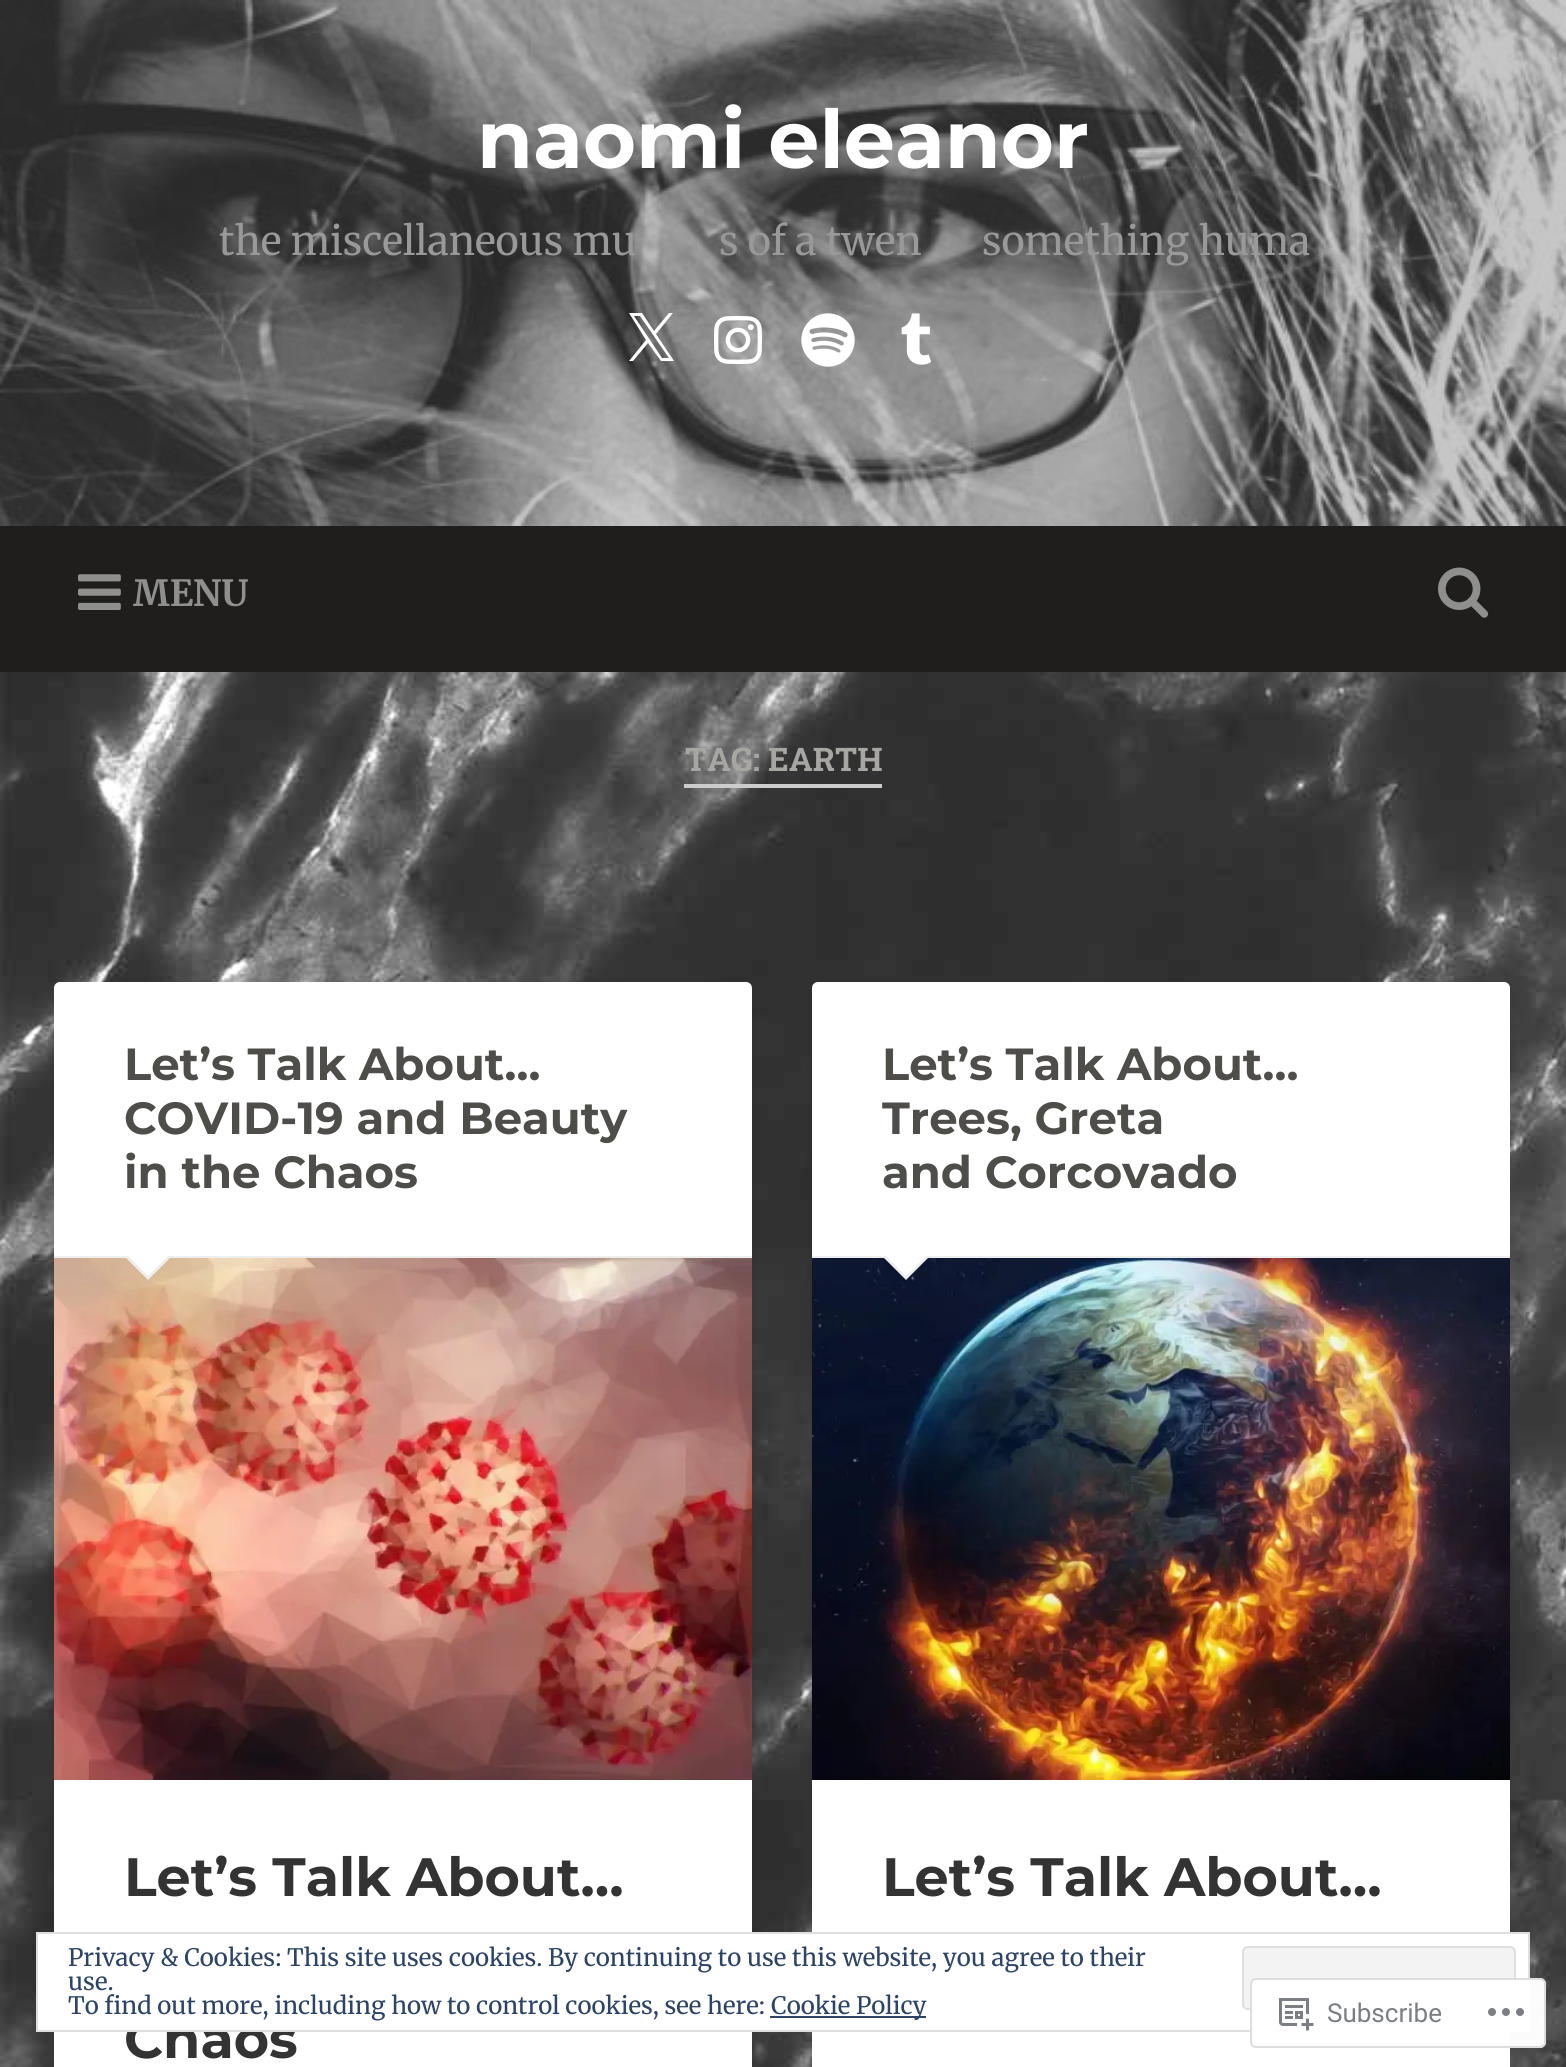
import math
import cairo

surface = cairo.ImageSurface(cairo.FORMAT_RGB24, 1566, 2067)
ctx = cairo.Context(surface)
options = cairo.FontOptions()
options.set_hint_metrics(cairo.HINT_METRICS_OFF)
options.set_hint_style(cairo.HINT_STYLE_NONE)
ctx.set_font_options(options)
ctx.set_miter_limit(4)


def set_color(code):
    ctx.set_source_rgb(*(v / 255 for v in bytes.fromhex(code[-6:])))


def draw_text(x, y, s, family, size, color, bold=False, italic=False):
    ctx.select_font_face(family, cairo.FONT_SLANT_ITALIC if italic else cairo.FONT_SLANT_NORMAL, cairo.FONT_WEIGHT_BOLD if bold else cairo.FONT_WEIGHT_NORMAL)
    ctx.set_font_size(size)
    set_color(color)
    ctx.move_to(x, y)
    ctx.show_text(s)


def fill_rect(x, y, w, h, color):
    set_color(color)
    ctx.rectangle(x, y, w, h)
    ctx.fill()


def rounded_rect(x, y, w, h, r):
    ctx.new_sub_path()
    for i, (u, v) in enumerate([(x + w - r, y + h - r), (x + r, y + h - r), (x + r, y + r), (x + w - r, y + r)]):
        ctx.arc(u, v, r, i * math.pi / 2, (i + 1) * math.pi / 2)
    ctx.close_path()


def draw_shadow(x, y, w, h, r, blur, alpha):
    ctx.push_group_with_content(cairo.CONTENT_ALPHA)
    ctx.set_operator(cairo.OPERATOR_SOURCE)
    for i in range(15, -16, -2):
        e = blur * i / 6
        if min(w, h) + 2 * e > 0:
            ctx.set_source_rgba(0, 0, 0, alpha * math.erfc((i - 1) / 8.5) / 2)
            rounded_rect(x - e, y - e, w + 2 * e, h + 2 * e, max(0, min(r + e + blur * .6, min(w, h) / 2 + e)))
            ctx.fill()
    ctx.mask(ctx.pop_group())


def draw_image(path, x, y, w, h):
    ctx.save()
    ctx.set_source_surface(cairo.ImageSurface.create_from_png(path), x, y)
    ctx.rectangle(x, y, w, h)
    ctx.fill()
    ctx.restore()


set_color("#ffffff")
ctx.paint()
draw_image("assets/img1.png", 0, 672, 1566, 1395)
draw_image("assets/img2.png", 0, 0, 1566, 526)
draw_text(477, 168, "naomi eleanor", "Montserrat Thin", 81, "#ffffff")
draw_text(219, 255, "the miscellaneous mu", "Merriweather", 39.6, "#999999")
draw_text(719, 255, "s of a twen", "Merriweather", 39.6, "#999999")
draw_text(982, 255, "something huma", "Merriweather", 39.6, "#999999")
set_color("#ffffff")
ctx.new_path()
ctx.move_to(656, 334)
ctx.line_to(673, 313)
ctx.line_to(669, 313)
ctx.line_to(654, 331)
ctx.line_to(642, 313)
ctx.line_to(629, 313)
ctx.line_to(646, 340)
ctx.line_to(629, 361)
ctx.line_to(633, 361)
ctx.line_to(648, 343)
ctx.line_to(661, 361)
ctx.line_to(674, 361)
ctx.close_path()
ctx.move_to(650, 340)
ctx.line_to(634, 316)
ctx.line_to(640, 316)
ctx.line_to(669, 358)
ctx.line_to(662, 358)
ctx.close_path()
ctx.fill()
draw_image("assets/img3.png", 714, 316, 48, 48)
draw_image("assets/img4.png", 801, 313, 54, 54)
draw_image("assets/img5.png", 901, 313, 30, 52)
fill_rect(0, 526, 1566, 146, "#1f1e1d")
draw_image("assets/img6.png", 78, 574, 43, 36)
draw_text(133, 606, "MENU", "Merriweather", 36, "#8f8f8e", bold=True)
draw_image("assets/img7.png", 1438, 567, 51, 51)
fill_rect(684, 784, 198, 4, "#cccccc")
draw_text(685, 771, "TAG: EARTH", "Roboto Slab", 32.5, "#a8a6a3", bold=True)
set_color("#000000")
draw_shadow(54, 984, 698, 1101, 6, 4, 0.1)
set_color("#ffffff")
rounded_rect(54, 982, 698, 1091, 6)
ctx.fill()
fill_rect(54, 1256, 698, 2, "#eeeeee")
draw_text(124, 1080, "Let’s Talk About…", "Montserrat Thin", 45, "#4e4d4a")
draw_text(124, 1134, "COVID-19 and Beauty", "Montserrat Thin", 45, "#4e4d4a")
draw_text(124, 1188, "in the Chaos", "Montserrat Thin", 45, "#4e4d4a")
draw_image("assets/img8.png", 54, 1258, 698, 522)
set_color("#eeeeee")
ctx.new_path()
ctx.move_to(124, 1256)
ctx.line_to(172, 1256)
ctx.line_to(148, 1280)
ctx.close_path()
ctx.fill()
set_color("#ffffff")
ctx.new_path()
ctx.move_to(126, 1254)
ctx.line_to(170, 1254)
ctx.line_to(148, 1276)
ctx.close_path()
ctx.fill()
draw_text(124, 1896, "Let’s Talk About…", "Montserrat Thin", 54, "#333333")
draw_text(124, 2058, "Chaos", "Montserrat Thin", 54, "#333333")
set_color("#000000")
draw_shadow(812, 984, 698, 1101, 6, 4, 0.1)
set_color("#ffffff")
rounded_rect(812, 982, 698, 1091, 6)
ctx.fill()
fill_rect(812, 1256, 698, 2, "#eeeeee")
draw_text(882, 1080, "Let’s Talk About…", "Montserrat Thin", 45, "#4e4d4a")
draw_text(882, 1134, "Trees, Greta", "Montserrat Thin", 45, "#4e4d4a")
draw_text(882, 1188, "and Corcovado", "Montserrat Thin", 45, "#4e4d4a")
draw_image("assets/img9.png", 812, 1258, 698, 522)
set_color("#eeeeee")
ctx.new_path()
ctx.move_to(882, 1256)
ctx.line_to(930, 1256)
ctx.line_to(906, 1280)
ctx.close_path()
ctx.fill()
set_color("#ffffff")
ctx.new_path()
ctx.move_to(884, 1254)
ctx.line_to(928, 1254)
ctx.line_to(906, 1276)
ctx.close_path()
ctx.fill()
draw_text(882, 1896, "Let’s Talk About…", "Montserrat Thin", 54, "#333333")
set_color("#ffffff")
ctx.rectangle(37, 1933, 1492, 98)
ctx.fill_preserve()
set_color("#dedede")
ctx.stroke()
draw_text(68, 1966, "Privacy & Cookies: This site uses cookies. By continuing to use this website, you agree to their", "Merriweather", 24, "#2e4467")
set_color("#f3f3f3")
rounded_rect(1243, 1947, 272, 62, 5)
ctx.fill_preserve()
set_color("#dedede")
ctx.stroke()
draw_text(68, 1990, "use.", "Merriweather", 24, "#2e4467")
draw_text(68, 2014, "To find out more, including how to control cookies, see here:", "Merriweather", 24, "#2e4467")
fill_rect(770, 2016, 156, 2, "#2e4467")
draw_text(771, 2014, "Cookie Policy", "Merriweather", 24, "#2e4467")
ctx.set_source_rgba(1, 1, 1, 0.98)
rounded_rect(1250, 1978, 296, 70, 6)
ctx.fill()
rounded_rect(1251, 1979, 294, 68, 5)
ctx.set_source_rgba(0.863, 0.863, 0.871, 0.98)
ctx.stroke()
draw_image("assets/img10.png", 1279, 1998, 35, 33)
draw_text(1327, 2022, "Subscribe", "Roboto", 26, "#7b7f84")
draw_image("assets/img11.png", 1488, 2008, 36, 8)
surface.write_to_png("output.png")
